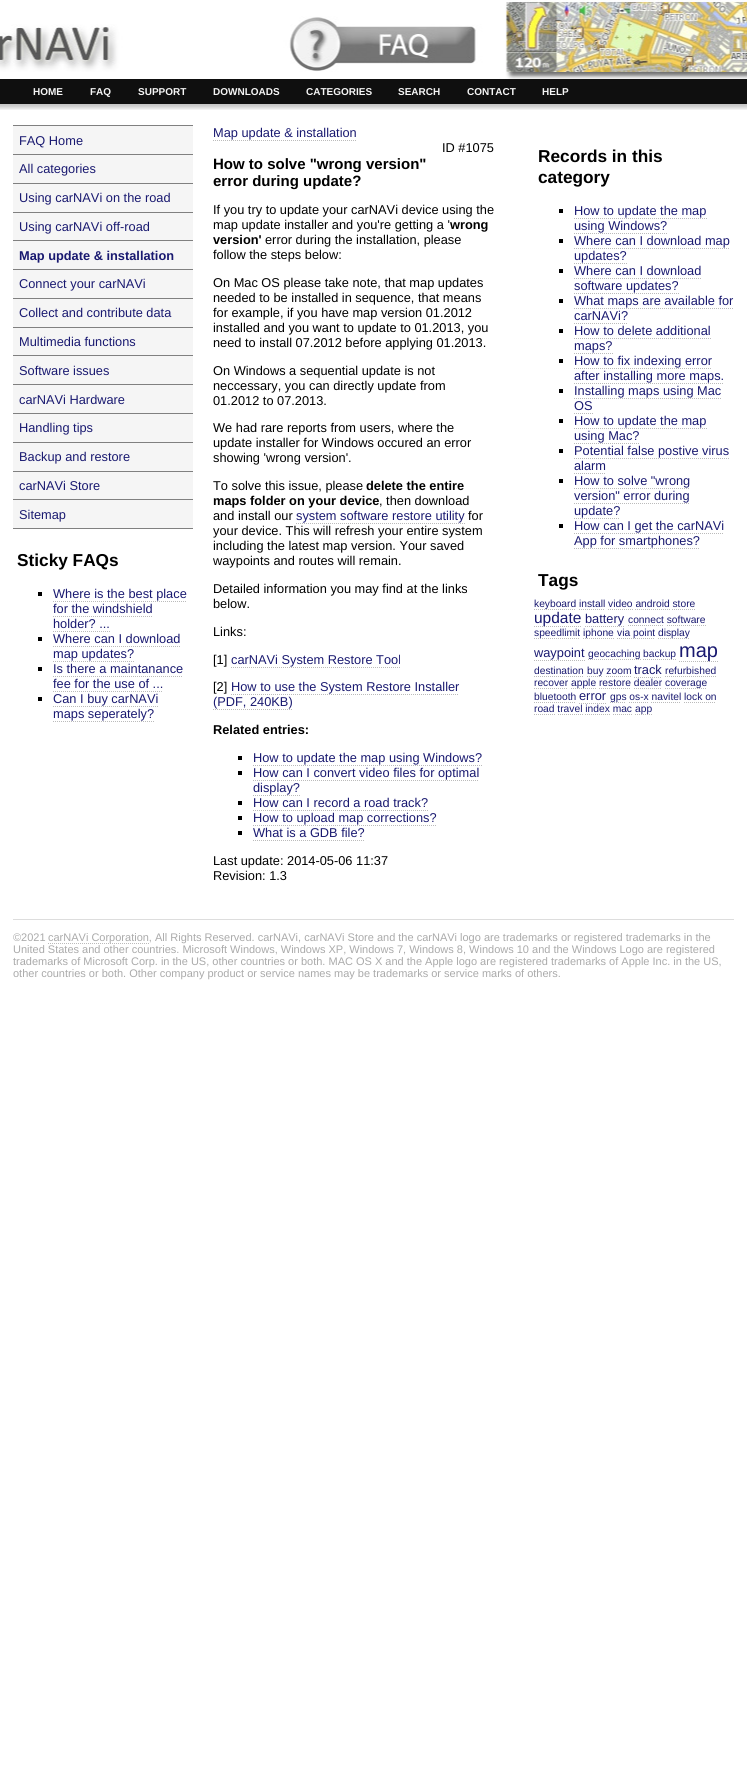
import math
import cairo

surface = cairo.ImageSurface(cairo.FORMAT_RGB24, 747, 1767)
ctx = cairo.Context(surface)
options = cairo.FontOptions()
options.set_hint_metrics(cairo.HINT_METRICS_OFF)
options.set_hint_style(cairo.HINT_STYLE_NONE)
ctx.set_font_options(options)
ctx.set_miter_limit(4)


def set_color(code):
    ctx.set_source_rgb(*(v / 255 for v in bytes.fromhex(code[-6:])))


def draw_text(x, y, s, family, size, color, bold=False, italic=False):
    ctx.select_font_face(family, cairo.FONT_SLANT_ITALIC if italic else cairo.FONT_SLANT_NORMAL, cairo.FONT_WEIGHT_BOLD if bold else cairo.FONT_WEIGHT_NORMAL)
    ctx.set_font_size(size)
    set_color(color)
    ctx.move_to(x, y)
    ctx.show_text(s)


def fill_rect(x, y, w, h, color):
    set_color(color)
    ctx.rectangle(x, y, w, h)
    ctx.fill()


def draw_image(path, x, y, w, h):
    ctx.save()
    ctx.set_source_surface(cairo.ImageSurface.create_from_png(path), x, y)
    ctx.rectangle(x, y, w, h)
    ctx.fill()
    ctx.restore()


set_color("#ffffff")
ctx.paint()
draw_image("assets/img1.png", 0, 0, 747, 110)
draw_text(33, 95, "HOME", "Liberation Sans", 10, "#f5f5f5", bold=True)
draw_text(90, 95, "FAQ", "Liberation Sans", 10, "#f5f5f5", bold=True)
draw_text(138, 95, "SUPPORT", "Liberation Sans", 10, "#f5f5f5", bold=True)
draw_text(213, 95, "DOWNLOADS", "Liberation Sans", 10, "#f5f5f5", bold=True)
draw_text(306, 95, "CATEGORIES", "Liberation Sans", 10, "#f5f5f5", bold=True)
draw_text(398, 95, "SEARCH", "Liberation Sans", 10, "#f5f5f5", bold=True)
draw_text(467, 95, "CONTACT", "Liberation Sans", 10, "#f5f5f5", bold=True)
draw_text(542, 95, "HELP", "Liberation Sans", 10, "#f5f5f5", bold=True)
fill_rect(13, 126, 180, 402, "#f5f5f5")
fill_rect(13, 125, 180, 1, "#808080")
fill_rect(13, 154, 180, 1, "#808080")
draw_text(19, 145, "FAQ Home", "Liberation Sans", 12.8, "#191970")
fill_rect(13, 183, 180, 1, "#808080")
draw_text(19, 173, "All categories", "Liberation Sans", 12.8, "#191970")
fill_rect(13, 212, 180, 1, "#808080")
draw_text(19, 202, "Using carNAVi on the road", "Liberation Sans", 12.8, "#191970")
fill_rect(13, 240, 180, 1, "#808080")
draw_text(19, 231, "Using carNAVi off-road", "Liberation Sans", 12.8, "#191970")
fill_rect(13, 269, 180, 1, "#808080")
draw_text(19, 260, "Map update & installation", "Liberation Sans", 12.8, "#191970", bold=True)
fill_rect(13, 298, 180, 1, "#808080")
draw_text(19, 288, "Connect your carNAVi", "Liberation Sans", 12.8, "#191970")
fill_rect(13, 327, 180, 1, "#808080")
draw_text(19, 317, "Collect and contribute data", "Liberation Sans", 12.8, "#191970")
fill_rect(13, 355, 180, 1, "#808080")
draw_text(19, 346, "Multimedia functions", "Liberation Sans", 12.8, "#191970")
fill_rect(13, 384, 180, 1, "#808080")
draw_text(19, 375, "Software issues", "Liberation Sans", 12.8, "#191970")
fill_rect(13, 413, 180, 1, "#808080")
draw_text(19, 404, "carNAVi Hardware", "Liberation Sans", 12.8, "#191970")
fill_rect(13, 442, 180, 1, "#808080")
draw_text(19, 432, "Handling tips", "Liberation Sans", 12.8, "#191970")
fill_rect(13, 471, 180, 1, "#808080")
draw_text(19, 461, "Backup and restore", "Liberation Sans", 12.8, "#191970")
fill_rect(13, 499, 180, 1, "#808080")
draw_text(19, 490, "carNAVi Store", "Liberation Sans", 12.8, "#191970")
fill_rect(13, 528, 180, 1, "#808080")
draw_text(19, 519, "Sitemap", "Liberation Sans", 12.8, "#191970")
draw_text(17, 566, "Sticky FAQs", "Liberation Sans", 17.25, "#000000", bold=True)
fill_rect(38, 592, 4, 4, "#000000")
draw_text(53, 598, "Where is the best place", "Liberation Sans", 12.8, "#191970")
ctx.new_path()
ctx.move_to(53, 601.5)
ctx.line_to(187, 601.5)
set_color("#bbbbbb")
ctx.set_line_width(1)
ctx.set_dash([1, 1])
ctx.stroke()
draw_text(53, 613, "for the windshield", "Liberation Sans", 12.8, "#191970")
draw_text(53, 628, "holder? ...", "Liberation Sans", 12.8, "#191970")
ctx.new_path()
ctx.move_to(53, 616.5)
ctx.line_to(152, 616.5)
set_color("#bbbbbb")
ctx.stroke()
ctx.new_path()
ctx.move_to(53, 631.5)
ctx.line_to(110, 631.5)
ctx.stroke()
fill_rect(38, 637, 4, 4, "#000000")
draw_text(53, 643, "Where can I download", "Liberation Sans", 12.8, "#191970")
ctx.new_path()
ctx.move_to(53, 646.5)
ctx.line_to(180, 646.5)
set_color("#bbbbbb")
ctx.stroke()
draw_text(53, 658, "map updates?", "Liberation Sans", 12.8, "#191970")
ctx.new_path()
ctx.move_to(53, 661.5)
ctx.line_to(134, 661.5)
set_color("#bbbbbb")
ctx.stroke()
fill_rect(38, 667, 4, 4, "#000000")
draw_text(53, 673, "Is there a maintanance", "Liberation Sans", 12.8, "#191970")
draw_text(53, 688, "fee for the use of ...", "Liberation Sans", 12.8, "#191970")
ctx.new_path()
ctx.move_to(53, 676.5)
ctx.line_to(183, 676.5)
set_color("#bbbbbb")
ctx.stroke()
ctx.new_path()
ctx.move_to(53, 691.5)
ctx.line_to(163, 691.5)
ctx.stroke()
fill_rect(38, 697, 4, 4, "#000000")
draw_text(53, 703, "Can I buy carNAVi", "Liberation Sans", 12.8, "#191970")
ctx.new_path()
ctx.move_to(53, 706.5)
ctx.line_to(158, 706.5)
set_color("#bbbbbb")
ctx.stroke()
draw_text(53, 718, "maps seperately?", "Liberation Sans", 12.8, "#191970")
ctx.new_path()
ctx.move_to(53, 721.5)
ctx.line_to(154, 721.5)
set_color("#bbbbbb")
ctx.stroke()
draw_text(213, 137, "Map update & installation", "Liberation Sans", 12.8, "#191970")
ctx.new_path()
ctx.move_to(213, 140.5)
ctx.line_to(357, 140.5)
set_color("#bbbbbb")
ctx.stroke()
draw_text(442, 152, "ID #1075", "Liberation Sans", 12.8, "#000000")
draw_text(213, 169, "How to solve \"wrong version\"", "Liberation Sans", 15, "#000000", bold=True)
draw_text(213, 186, "error during update?", "Liberation Sans", 15, "#000000", bold=True)
draw_text(213, 214, "If you try to update your carNAVi device using the", "Liberation Sans", 12.8, "#000000")
draw_text(213, 229, "map update installer and you're getting a '", "Liberation Sans", 12.8, "#000000")
draw_text(450, 229, "wrong", "Liberation Sans", 12.8, "#000000", bold=True)
draw_text(213, 244, "version'", "Liberation Sans", 12.8, "#000000", bold=True)
draw_text(265, 244, "error during the installation, please", "Liberation Sans", 12.8, "#000000")
draw_text(213, 259, "follow the steps below:", "Liberation Sans", 12.8, "#000000")
draw_text(213, 287, "On Mac OS please take note, that map updates", "Liberation Sans", 12.8, "#000000")
draw_text(213, 302, "needed to be installed in sequence, that means", "Liberation Sans", 12.8, "#000000")
draw_text(213, 317, "for example, if you have map version 01.2012", "Liberation Sans", 12.8, "#000000")
draw_text(213, 332, "installed and you want to update to 01.2013, you", "Liberation Sans", 12.8, "#000000")
draw_text(213, 347, "need to install 07.2012 before applying 01.2013.", "Liberation Sans", 12.8, "#000000")
draw_text(213, 375, "On Windows a sequential update is not", "Liberation Sans", 12.8, "#000000")
draw_text(213, 390, "neccessary, you can directly update from", "Liberation Sans", 12.8, "#000000")
draw_text(213, 405, "01.2012 to 07.2013.", "Liberation Sans", 12.8, "#000000")
draw_text(213, 432, "We had rare reports from users, where the", "Liberation Sans", 12.8, "#000000")
draw_text(213, 447, "update installer for Windows occured an error", "Liberation Sans", 12.8, "#000000")
draw_text(213, 462, "showing 'wrong version'.", "Liberation Sans", 12.8, "#000000")
draw_text(213, 490, "To solve this issue, please", "Liberation Sans", 12.8, "#000000")
draw_text(366, 490, "delete the entire", "Liberation Sans", 12.8, "#000000", bold=True)
draw_text(213, 505, "maps folder on your device", "Liberation Sans", 12.8, "#000000", bold=True)
draw_text(379, 505, ", then download", "Liberation Sans", 12.8, "#000000")
draw_text(213, 520, "and install our", "Liberation Sans", 12.8, "#000000")
draw_text(296, 520, "system software restore utility", "Liberation Sans", 12.8, "#191970")
ctx.new_path()
ctx.move_to(296, 523.5)
ctx.line_to(465, 523.5)
set_color("#bbbbbb")
ctx.stroke()
draw_text(468, 520, "for", "Liberation Sans", 12.8, "#000000")
draw_text(213, 535, "your device. This will refresh your entire system", "Liberation Sans", 12.8, "#000000")
draw_text(213, 550, "including the latest map version. Your saved", "Liberation Sans", 12.8, "#000000")
draw_text(213, 565, "waypoints and routes will remain.", "Liberation Sans", 12.8, "#000000")
draw_text(213, 593, "Detailed information you may find at the links", "Liberation Sans", 12.8, "#000000")
draw_text(213, 608, "below.", "Liberation Sans", 12.8, "#000000")
draw_text(213, 636, "Links:", "Liberation Sans", 12.8, "#000000")
draw_text(213, 664, "[1]", "Liberation Sans", 12.8, "#000000")
draw_text(231, 664, "carNAVi System Restore Tool", "Liberation Sans", 12.8, "#191970")
ctx.new_path()
ctx.move_to(231, 667.5)
ctx.line_to(401, 667.5)
set_color("#bbbbbb")
ctx.stroke()
draw_text(213, 691, "[2]", "Liberation Sans", 12.8, "#000000")
draw_text(231, 691, "How to use the System Restore Installer", "Liberation Sans", 12.8, "#191970")
ctx.new_path()
ctx.move_to(231, 694.5)
ctx.line_to(459, 694.5)
set_color("#bbbbbb")
ctx.stroke()
draw_text(213, 706, "(PDF, 240KB)", "Liberation Sans", 12.8, "#191970")
ctx.new_path()
ctx.move_to(213, 709.5)
ctx.line_to(292, 709.5)
set_color("#bbbbbb")
ctx.stroke()
draw_text(213, 734, "Related entries:", "Liberation Sans", 12.8, "#000000", bold=True)
fill_rect(238, 756, 4, 4, "#000000")
draw_text(253, 762, "How to update the map using Windows?", "Liberation Sans", 12.8, "#191970")
ctx.new_path()
ctx.move_to(253, 765.5)
ctx.line_to(482, 765.5)
set_color("#bbbbbb")
ctx.stroke()
fill_rect(238, 771, 4, 4, "#000000")
draw_text(253, 777, "How can I convert video files for optimal", "Liberation Sans", 12.8, "#191970")
ctx.new_path()
ctx.move_to(253, 780.5)
ctx.line_to(479, 780.5)
set_color("#bbbbbb")
ctx.stroke()
draw_text(253, 792, "display?", "Liberation Sans", 12.8, "#191970")
ctx.new_path()
ctx.move_to(253, 795.5)
ctx.line_to(300, 795.5)
set_color("#bbbbbb")
ctx.stroke()
fill_rect(238, 801, 4, 4, "#000000")
draw_text(253, 807, "How can I record a road track?", "Liberation Sans", 12.8, "#191970")
ctx.new_path()
ctx.move_to(253, 810.5)
ctx.line_to(428, 810.5)
set_color("#bbbbbb")
ctx.stroke()
fill_rect(238, 816, 4, 4, "#000000")
draw_text(253, 822, "How to upload map corrections?", "Liberation Sans", 12.8, "#191970")
ctx.new_path()
ctx.move_to(253, 825.5)
ctx.line_to(436, 825.5)
set_color("#bbbbbb")
ctx.stroke()
fill_rect(238, 831, 4, 4, "#000000")
draw_text(253, 837, "What is a GDB file?", "Liberation Sans", 12.8, "#191970")
ctx.new_path()
ctx.move_to(253, 840.5)
ctx.line_to(364, 840.5)
set_color("#bbbbbb")
ctx.stroke()
draw_text(213, 865, "Last update: 2014-05-06 11:37", "Liberation Sans", 12.8, "#000000")
draw_text(213, 880, "Revision: 1.3", "Liberation Sans", 12.8, "#000000")
draw_text(538, 162, "Records in this", "Liberation Sans", 17.25, "#000000", bold=True)
draw_text(538, 183, "category", "Liberation Sans", 17.25, "#000000", bold=True)
fill_rect(559, 209, 4, 4, "#000000")
draw_text(574, 215, "How to update the map", "Liberation Sans", 12.8, "#191970")
ctx.new_path()
ctx.move_to(574, 218.5)
ctx.line_to(707, 218.5)
set_color("#bbbbbb")
ctx.stroke()
draw_text(574, 230, "using Windows?", "Liberation Sans", 12.8, "#191970")
ctx.new_path()
ctx.move_to(574, 233.5)
ctx.line_to(667, 233.5)
set_color("#bbbbbb")
ctx.stroke()
fill_rect(559, 239, 4, 4, "#000000")
draw_text(574, 245, "Where can I download map", "Liberation Sans", 12.8, "#191970")
ctx.new_path()
ctx.move_to(574, 248.5)
ctx.line_to(730, 248.5)
set_color("#bbbbbb")
ctx.stroke()
draw_text(574, 260, "updates?", "Liberation Sans", 12.8, "#191970")
ctx.new_path()
ctx.move_to(574, 263.5)
ctx.line_to(627, 263.5)
set_color("#bbbbbb")
ctx.stroke()
fill_rect(559, 269, 4, 4, "#000000")
draw_text(574, 275, "Where can I download", "Liberation Sans", 12.8, "#191970")
ctx.new_path()
ctx.move_to(574, 278.5)
ctx.line_to(702, 278.5)
set_color("#bbbbbb")
ctx.stroke()
draw_text(574, 290, "software updates?", "Liberation Sans", 12.8, "#191970")
ctx.new_path()
ctx.move_to(574, 293.5)
ctx.line_to(679, 293.5)
set_color("#bbbbbb")
ctx.stroke()
fill_rect(559, 299, 4, 4, "#000000")
draw_text(574, 305, "What maps are available for", "Liberation Sans", 12.8, "#191970")
ctx.new_path()
ctx.move_to(574, 308.5)
ctx.line_to(734, 308.5)
set_color("#bbbbbb")
ctx.stroke()
draw_text(574, 320, "carNAVi?", "Liberation Sans", 12.8, "#191970")
ctx.new_path()
ctx.move_to(574, 323.5)
ctx.line_to(628, 323.5)
set_color("#bbbbbb")
ctx.stroke()
fill_rect(559, 329, 4, 4, "#000000")
draw_text(574, 335, "How to delete additional", "Liberation Sans", 12.8, "#191970")
ctx.new_path()
ctx.move_to(574, 338.5)
ctx.line_to(711, 338.5)
set_color("#bbbbbb")
ctx.stroke()
draw_text(574, 350, "maps?", "Liberation Sans", 12.8, "#191970")
ctx.new_path()
ctx.move_to(574, 353.5)
ctx.line_to(613, 353.5)
set_color("#bbbbbb")
ctx.stroke()
fill_rect(559, 359, 4, 4, "#000000")
draw_text(574, 365, "How to fix indexing error", "Liberation Sans", 12.8, "#191970")
ctx.new_path()
ctx.move_to(574, 368.5)
ctx.line_to(712, 368.5)
set_color("#bbbbbb")
ctx.stroke()
draw_text(574, 380, "after installing more maps.", "Liberation Sans", 12.8, "#191970")
ctx.new_path()
ctx.move_to(574, 383.5)
ctx.line_to(724, 383.5)
set_color("#bbbbbb")
ctx.stroke()
fill_rect(559, 389, 4, 4, "#000000")
draw_text(574, 395, "Installing maps using Mac", "Liberation Sans", 12.8, "#191970")
ctx.new_path()
ctx.move_to(574, 398.5)
ctx.line_to(721, 398.5)
set_color("#bbbbbb")
ctx.stroke()
draw_text(574, 410, "OS", "Liberation Sans", 12.8, "#191970")
ctx.new_path()
ctx.move_to(574, 413.5)
ctx.line_to(593, 413.5)
set_color("#bbbbbb")
ctx.stroke()
fill_rect(559, 419, 4, 4, "#000000")
draw_text(574, 425, "How to update the map", "Liberation Sans", 12.8, "#191970")
ctx.new_path()
ctx.move_to(574, 428.5)
ctx.line_to(707, 428.5)
set_color("#bbbbbb")
ctx.stroke()
draw_text(574, 440, "using Mac?", "Liberation Sans", 12.8, "#191970")
ctx.new_path()
ctx.move_to(574, 443.5)
ctx.line_to(640, 443.5)
set_color("#bbbbbb")
ctx.stroke()
fill_rect(559, 449, 4, 4, "#000000")
draw_text(574, 455, "Potential false postive virus", "Liberation Sans", 12.8, "#191970")
ctx.new_path()
ctx.move_to(574, 458.5)
ctx.line_to(729, 458.5)
set_color("#bbbbbb")
ctx.stroke()
draw_text(574, 470, "alarm", "Liberation Sans", 12.8, "#191970")
ctx.new_path()
ctx.move_to(574, 473.5)
ctx.line_to(606, 473.5)
set_color("#bbbbbb")
ctx.stroke()
fill_rect(559, 479, 4, 4, "#000000")
draw_text(574, 485, "How to solve \"wrong", "Liberation Sans", 12.8, "#191970")
ctx.new_path()
ctx.move_to(574, 488.5)
ctx.line_to(690, 488.5)
set_color("#bbbbbb")
ctx.stroke()
draw_text(574, 500, "version\" error during", "Liberation Sans", 12.8, "#191970")
ctx.new_path()
ctx.move_to(574, 503.5)
ctx.line_to(690, 503.5)
set_color("#bbbbbb")
ctx.stroke()
draw_text(574, 515, "update?", "Liberation Sans", 12.8, "#191970")
ctx.new_path()
ctx.move_to(574, 518.5)
ctx.line_to(620, 518.5)
set_color("#bbbbbb")
ctx.stroke()
fill_rect(559, 524, 4, 4, "#000000")
draw_text(574, 530, "How can I get the carNAVi", "Liberation Sans", 12.8, "#191970")
ctx.new_path()
ctx.move_to(574, 533.5)
ctx.line_to(724, 533.5)
set_color("#bbbbbb")
ctx.stroke()
draw_text(574, 545, "App for smartphones?", "Liberation Sans", 12.8, "#191970")
ctx.new_path()
ctx.move_to(574, 548.5)
ctx.line_to(700, 548.5)
set_color("#bbbbbb")
ctx.stroke()
draw_text(538, 586, "Tags", "Liberation Sans", 17.25, "#000000", bold=True)
ctx.new_path()
ctx.move_to(534, 609.5)
ctx.line_to(576, 609.5)
set_color("#bbbbbb")
ctx.stroke()
draw_text(534, 607, "keyboard install video android store", "Liberation Sans", 10.25, "#191970")
ctx.new_path()
ctx.move_to(579, 609.5)
ctx.line_to(605, 609.5)
ctx.move_to(608, 609.5)
ctx.line_to(633, 609.5)
set_color("#bbbbbb")
ctx.stroke()
ctx.new_path()
ctx.move_to(635, 609.5)
ctx.line_to(670, 609.5)
ctx.move_to(672, 609.5)
ctx.line_to(695, 609.5)
ctx.stroke()
ctx.new_path()
ctx.move_to(534, 626.5)
ctx.line_to(581, 626.5)
ctx.stroke()
draw_text(534, 623, "update", "Liberation Sans", 15.5, "#191970")
draw_text(585, 623, "battery", "Liberation Sans", 12.8, "#191970")
ctx.new_path()
ctx.move_to(585, 626.5)
ctx.line_to(625, 626.5)
set_color("#bbbbbb")
ctx.stroke()
draw_text(628, 623, "connect software", "Liberation Sans", 10.25, "#191970")
ctx.new_path()
ctx.move_to(628, 625.5)
ctx.line_to(664, 625.5)
set_color("#bbbbbb")
ctx.stroke()
ctx.new_path()
ctx.move_to(667, 625.5)
ctx.line_to(706, 625.5)
ctx.stroke()
ctx.new_path()
ctx.move_to(534, 638.5)
ctx.line_to(580, 638.5)
ctx.stroke()
draw_text(534, 636, "speedlimit", "Liberation Sans", 10.25, "#191970")
ctx.new_path()
ctx.move_to(583, 638.5)
ctx.line_to(614, 638.5)
set_color("#bbbbbb")
ctx.stroke()
draw_text(583, 636, "iphone", "Liberation Sans", 10.25, "#191970")
ctx.new_path()
ctx.move_to(617, 638.5)
ctx.line_to(655, 638.5)
set_color("#bbbbbb")
ctx.stroke()
draw_text(617, 636, "via point", "Liberation Sans", 10.25, "#191970")
ctx.new_path()
ctx.move_to(658, 638.5)
ctx.line_to(690, 638.5)
set_color("#bbbbbb")
ctx.stroke()
draw_text(658, 636, "display", "Liberation Sans", 10.25, "#191970")
draw_text(534, 657, "waypoint", "Liberation Sans", 12.8, "#191970")
ctx.new_path()
ctx.move_to(534, 660.5)
ctx.line_to(585, 660.5)
set_color("#bbbbbb")
ctx.stroke()
ctx.new_path()
ctx.move_to(588, 659.5)
ctx.line_to(641, 659.5)
ctx.stroke()
draw_text(588, 657, "geocaching", "Liberation Sans", 10.25, "#191970")
ctx.new_path()
ctx.move_to(643, 659.5)
ctx.line_to(677, 659.5)
set_color("#bbbbbb")
ctx.stroke()
draw_text(643, 657, "backup", "Liberation Sans", 10.25, "#191970")
ctx.new_path()
ctx.move_to(679, 661.5)
ctx.line_to(719, 661.5)
set_color("#bbbbbb")
ctx.stroke()
draw_text(679, 657, "map", "Liberation Sans", 20, "#191970")
draw_text(534, 674, "destination", "Liberation Sans", 10.25, "#191970")
ctx.new_path()
ctx.move_to(534, 676.5)
ctx.line_to(584, 676.5)
set_color("#bbbbbb")
ctx.stroke()
ctx.new_path()
ctx.move_to(587, 676.5)
ctx.line_to(603, 676.5)
ctx.stroke()
draw_text(587, 674, "buy zoom", "Liberation Sans", 10.25, "#191970")
draw_text(634, 674, "track", "Liberation Sans", 12.8, "#191970")
draw_text(665, 674, "refurbished", "Liberation Sans", 10.25, "#191970")
ctx.new_path()
ctx.move_to(665, 676.5)
ctx.line_to(716, 676.5)
set_color("#bbbbbb")
ctx.stroke()
ctx.new_path()
ctx.move_to(606, 676.5)
ctx.line_to(631, 676.5)
ctx.move_to(634, 677.5)
ctx.line_to(662, 677.5)
ctx.stroke()
draw_text(534, 686, "recover", "Liberation Sans", 10.25, "#191970")
ctx.new_path()
ctx.move_to(534, 688.5)
ctx.line_to(568, 688.5)
set_color("#bbbbbb")
ctx.stroke()
ctx.new_path()
ctx.move_to(571, 688.5)
ctx.line_to(596, 688.5)
ctx.stroke()
draw_text(571, 686, "apple restore dealer", "Liberation Sans", 10.25, "#191970")
ctx.new_path()
ctx.move_to(665, 688.5)
ctx.line_to(707, 688.5)
set_color("#bbbbbb")
ctx.stroke()
draw_text(665, 686, "coverage", "Liberation Sans", 10.25, "#191970")
ctx.new_path()
ctx.move_to(599, 688.5)
ctx.line_to(631, 688.5)
ctx.move_to(634, 688.5)
ctx.line_to(662, 688.5)
set_color("#bbbbbb")
ctx.stroke()
draw_text(534, 700, "bluetooth", "Liberation Sans", 10.25, "#191970")
ctx.new_path()
ctx.move_to(534, 702.5)
ctx.line_to(576, 702.5)
set_color("#bbbbbb")
ctx.stroke()
draw_text(579, 700, "error", "Liberation Sans", 12.8, "#191970")
ctx.new_path()
ctx.move_to(579, 703.5)
ctx.line_to(606, 703.5)
set_color("#bbbbbb")
ctx.stroke()
ctx.new_path()
ctx.move_to(610, 702.5)
ctx.line_to(626, 702.5)
ctx.stroke()
draw_text(610, 700, "gps os-x navitel lock on", "Liberation Sans", 10.25, "#191970")
ctx.new_path()
ctx.move_to(629, 702.5)
ctx.line_to(648, 702.5)
ctx.move_to(651, 702.5)
ctx.line_to(681, 702.5)
set_color("#bbbbbb")
ctx.stroke()
draw_text(534, 712, "road travel index mac", "Liberation Sans", 10.25, "#191970")
ctx.new_path()
ctx.move_to(684, 702.5)
ctx.line_to(716, 702.5)
set_color("#bbbbbb")
ctx.stroke()
ctx.new_path()
ctx.move_to(534, 714.5)
ctx.line_to(555, 714.5)
ctx.stroke()
ctx.new_path()
ctx.move_to(613, 714.5)
ctx.line_to(632, 714.5)
ctx.move_to(635, 714.5)
ctx.line_to(652, 714.5)
ctx.stroke()
draw_text(635, 712, "app", "Liberation Sans", 10.25, "#191970")
ctx.new_path()
ctx.move_to(558, 714.5)
ctx.line_to(583, 714.5)
ctx.move_to(585, 714.5)
ctx.line_to(610, 714.5)
set_color("#bbbbbb")
ctx.stroke()
fill_rect(13, 919, 721, 1, "#dddddd")
draw_text(13, 941, "©2021", "Liberation Sans", 11, "#aaaaaa")
ctx.new_path()
ctx.move_to(48, 943.5)
ctx.line_to(149, 943.5)
set_color("#bbbbbb")
ctx.stroke()
draw_text(48, 941, "carNAVi Corporation, All Rights Reserved. carNAVi, carNAVi Store and the carNAVi logo are trademarks or registered trademarks in the", "Liberation Sans", 11, "#aaaaaa")
draw_text(13, 953, "United States and other countries. Microsoft Windows, Windows XP, Windows 7, Windows 8, Windows 10 and the Windows Logo are registered", "Liberation Sans", 11, "#aaaaaa")
draw_text(13, 965, "trademarks of Microsoft Corp. in the US, other countries or both. MAC OS X and the Apple logo are registered trademarks of Apple Inc. in the US,", "Liberation Sans", 11, "#aaaaaa")
draw_text(13, 977, "other countries or both. Other company product or service names may be trademarks or service marks of others.", "Liberation Sans", 11, "#aaaaaa")
surface.write_to_png("output.png")
